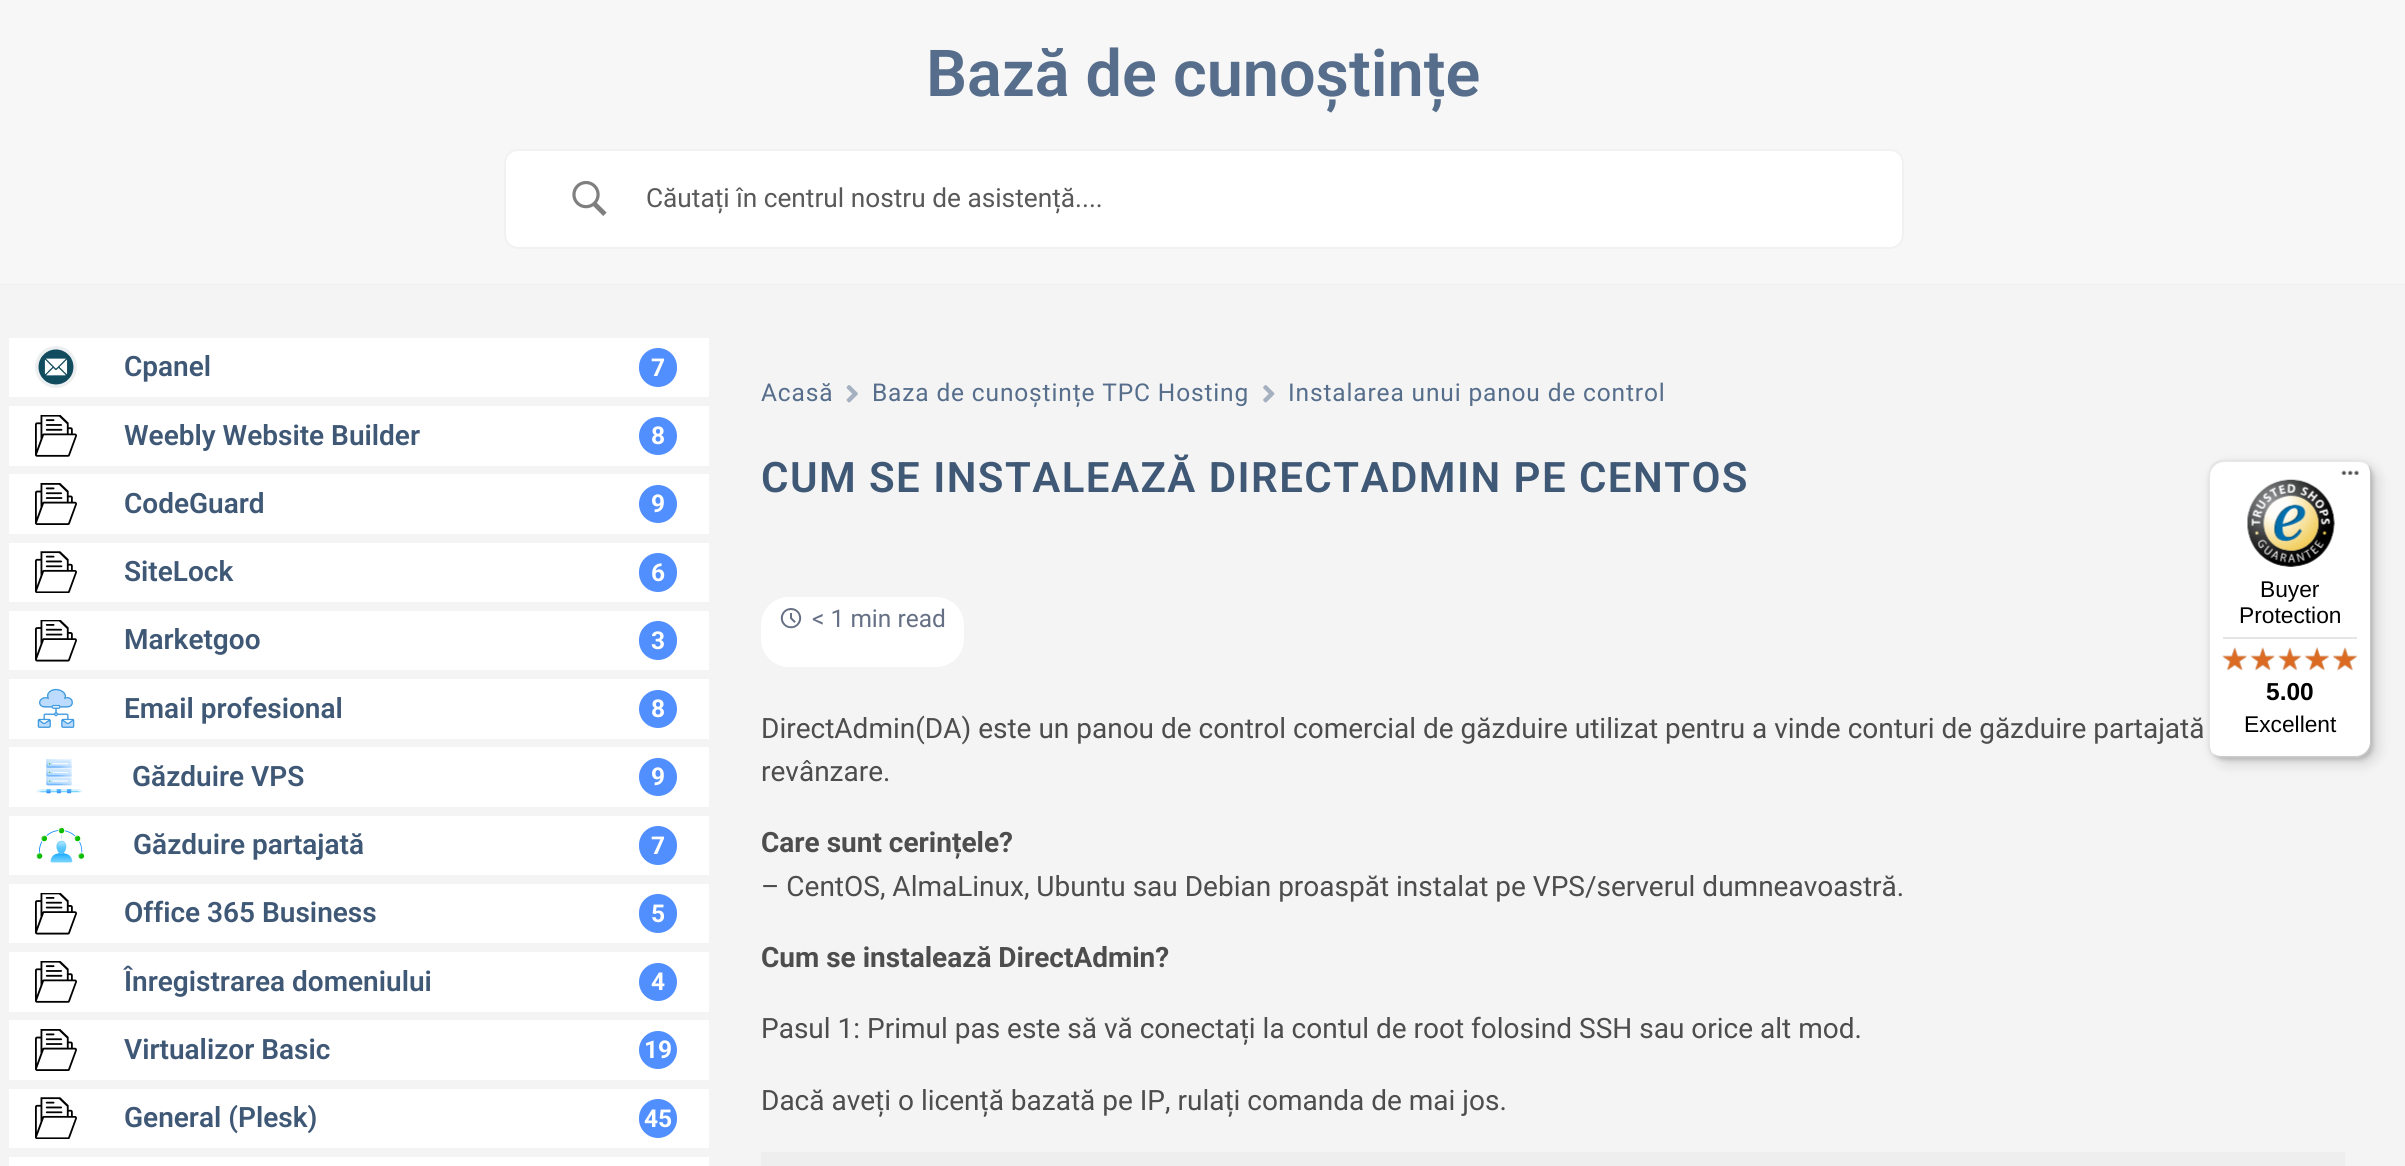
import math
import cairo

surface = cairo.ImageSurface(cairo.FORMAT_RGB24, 2405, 1166)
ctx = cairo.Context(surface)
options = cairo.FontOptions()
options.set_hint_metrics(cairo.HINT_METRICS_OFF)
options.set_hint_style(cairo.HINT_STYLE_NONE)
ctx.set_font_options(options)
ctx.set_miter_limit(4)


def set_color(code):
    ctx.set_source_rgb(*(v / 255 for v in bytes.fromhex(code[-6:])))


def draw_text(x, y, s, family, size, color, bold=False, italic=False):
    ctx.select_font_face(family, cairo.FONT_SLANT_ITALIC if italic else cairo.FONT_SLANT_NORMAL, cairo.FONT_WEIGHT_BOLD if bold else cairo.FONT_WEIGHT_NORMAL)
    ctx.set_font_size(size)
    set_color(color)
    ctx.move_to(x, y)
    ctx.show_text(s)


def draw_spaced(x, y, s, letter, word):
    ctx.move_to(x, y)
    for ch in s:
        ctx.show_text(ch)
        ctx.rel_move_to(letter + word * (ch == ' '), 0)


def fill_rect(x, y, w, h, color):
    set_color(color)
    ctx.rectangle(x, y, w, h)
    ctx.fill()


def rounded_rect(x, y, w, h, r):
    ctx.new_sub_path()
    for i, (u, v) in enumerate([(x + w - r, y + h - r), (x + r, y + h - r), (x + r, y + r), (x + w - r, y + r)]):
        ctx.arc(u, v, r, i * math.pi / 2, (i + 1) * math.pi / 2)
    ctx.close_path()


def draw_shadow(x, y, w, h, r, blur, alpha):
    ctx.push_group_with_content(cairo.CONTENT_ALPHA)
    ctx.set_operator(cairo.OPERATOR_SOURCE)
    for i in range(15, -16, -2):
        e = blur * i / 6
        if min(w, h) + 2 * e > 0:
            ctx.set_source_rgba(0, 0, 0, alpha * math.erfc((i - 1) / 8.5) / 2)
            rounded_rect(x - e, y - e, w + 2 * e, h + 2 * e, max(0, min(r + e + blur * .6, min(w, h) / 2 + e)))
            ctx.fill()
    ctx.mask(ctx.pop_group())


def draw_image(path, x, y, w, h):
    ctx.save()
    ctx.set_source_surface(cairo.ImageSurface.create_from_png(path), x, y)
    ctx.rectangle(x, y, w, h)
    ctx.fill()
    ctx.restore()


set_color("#f7f7f7")
ctx.paint()
fill_rect(0, 284, 2405, 1, "#f1f1f1")
draw_text(926, 96, "Bază de cunoștințe", "Roboto SemiBold", 64.75, "#566e8b")
set_color("#ffffff")
rounded_rect(505, 150, 1398, 98, 13)
ctx.fill_preserve()
set_color("#f1f1f1")
ctx.stroke()
draw_image("assets/img1.png", 572, 181, 35, 35)
draw_text(646, 207, "Căutați în centrul nostru de asistență....", "Roboto", 26.25, "#595959")
fill_rect(0, 285, 2405, 881, "#f4f4f4")
fill_rect(9, 338, 700, 59, "#ffffff")
draw_image("assets/img2.png", 35, 346, 42, 42)
draw_text(124, 376, "Cpanel", "Roboto SemiBold", 28, "#3f5876")
set_color("#528ffe")
rounded_rect(639, 348, 38, 39, 19)
ctx.fill()
draw_text(651, 376, "7", "Roboto", 24.5, "#ffffff", bold=True)
fill_rect(9, 406, 700, 60, "#ffffff")
draw_image("assets/img3.png", 35, 415, 42, 42)
draw_text(124, 445, "Weebly Website Builder", "Roboto SemiBold", 28, "#3f5876")
set_color("#528ffe")
ctx.new_path()
ctx.arc(658, 436, 19, 0, 2 * math.pi)
ctx.fill()
draw_text(651, 444, "8", "Roboto", 24.5, "#ffffff", bold=True)
fill_rect(9, 474, 700, 60, "#ffffff")
draw_image("assets/img4.png", 35, 483, 42, 42)
draw_text(124, 513, "CodeGuard", "Roboto SemiBold", 28, "#3f5876")
set_color("#528ffe")
ctx.new_path()
ctx.arc(658, 504, 19, 0, 2 * math.pi)
ctx.fill()
draw_text(651, 512, "9", "Roboto", 24.5, "#ffffff", bold=True)
fill_rect(9, 543, 700, 59, "#ffffff")
draw_image("assets/img5.png", 35, 551, 42, 42)
draw_text(124, 581, "SiteLock", "Roboto SemiBold", 28, "#3f5876")
set_color("#528ffe")
rounded_rect(639, 553, 38, 39, 19)
ctx.fill()
draw_text(651, 581, "6", "Roboto", 24.5, "#ffffff", bold=True)
fill_rect(9, 611, 700, 59, "#ffffff")
draw_image("assets/img6.png", 35, 620, 42, 42)
draw_text(124, 649, "Marketgoo", "Roboto SemiBold", 28, "#3f5876")
set_color("#528ffe")
rounded_rect(639, 621, 38, 39, 19)
ctx.fill()
draw_text(651, 649, "3", "Roboto", 24.5, "#ffffff", bold=True)
fill_rect(9, 679, 700, 60, "#ffffff")
draw_image("assets/img7.png", 37, 688, 38, 40)
draw_text(124, 718, "Email profesional", "Roboto SemiBold", 28, "#3f5876")
set_color("#528ffe")
ctx.new_path()
ctx.arc(658, 709, 19, 0, 2 * math.pi)
ctx.fill()
draw_text(651, 717, "8", "Roboto", 24.5, "#ffffff", bold=True)
fill_rect(9, 747, 700, 60, "#ffffff")
draw_image("assets/img8.png", 36, 759, 47, 35)
draw_text(132, 786, "Găzduire VPS", "Roboto SemiBold", 28, "#3f5876")
set_color("#528ffe")
ctx.new_path()
ctx.arc(658, 777, 19, 0, 2 * math.pi)
ctx.fill()
draw_text(651, 785, "9", "Roboto", 24.5, "#ffffff", bold=True)
fill_rect(9, 816, 700, 59, "#ffffff")
draw_image("assets/img9.png", 36, 827, 49, 36)
draw_text(133, 854, "Găzduire partajată", "Roboto SemiBold", 28, "#3f5876")
set_color("#528ffe")
rounded_rect(639, 826, 38, 39, 19)
ctx.fill()
draw_text(651, 854, "7", "Roboto", 24.5, "#ffffff", bold=True)
fill_rect(9, 884, 700, 59, "#ffffff")
draw_image("assets/img6.png", 35, 893, 42, 42)
draw_text(124, 922, "Office 365 Business", "Roboto SemiBold", 28, "#3f5876")
set_color("#528ffe")
rounded_rect(639, 894, 38, 39, 19)
ctx.fill()
draw_text(651, 922, "5", "Roboto", 24.5, "#ffffff", bold=True)
fill_rect(9, 952, 700, 60, "#ffffff")
draw_image("assets/img3.png", 35, 961, 42, 42)
draw_text(124, 991, "Înregistrarea domeniului", "Roboto SemiBold", 28, "#3f5876")
set_color("#528ffe")
ctx.new_path()
ctx.arc(658, 982, 19, 0, 2 * math.pi)
ctx.fill()
draw_text(651, 990, "4", "Roboto", 24.5, "#ffffff", bold=True)
fill_rect(9, 1020, 700, 60, "#ffffff")
draw_image("assets/img4.png", 35, 1029, 42, 42)
draw_text(124, 1059, "Virtualizor Basic", "Roboto SemiBold", 28, "#3f5876")
set_color("#528ffe")
ctx.new_path()
ctx.arc(658, 1050, 19, 0, 2 * math.pi)
ctx.fill()
draw_text(644, 1058, "19", "Roboto", 24.5, "#ffffff", bold=True)
fill_rect(9, 1089, 700, 59, "#ffffff")
draw_image("assets/img5.png", 35, 1097, 42, 42)
draw_text(124, 1127, "General (Plesk)", "Roboto SemiBold", 28, "#3f5876")
set_color("#528ffe")
rounded_rect(639, 1099, 38, 39, 19)
ctx.fill()
draw_text(644, 1127, "45", "Roboto", 24.5, "#ffffff", bold=True)
fill_rect(9, 1157, 700, 9, "#ffffff")
ctx.select_font_face("Roboto")
set_color("#566e8b")
draw_spaced(761, 401, "Acasă", 0.85, 0)
draw_image("assets/img10.png", 846, 385, 12, 18)
draw_spaced(872, 401, "Baza de cunoștințe TPC Hosting", 0.85, 0)
draw_image("assets/img11.png", 1263, 385, 12, 18)
draw_spaced(1288, 401, "Instalarea unui panou de control", 0.85, 0)
ctx.select_font_face("Roboto SemiBold")
ctx.set_font_size(42)
set_color("#3f5876")
draw_spaced(761, 492, "CUM SE INSTALEAZĂ DIRECTADMIN PE CENTOS", 1.45, 0)
set_color("#ffffff")
rounded_rect(761, 597, 203, 70, 28)
ctx.fill()
draw_image("assets/img12.png", 780, 608, 22, 21)
draw_text(812, 627, "< 1 min read", "Roboto", 24.5, "#667085")
draw_text(761, 738, "DirectAdmin(DA) este un panou de control comercial de găzduire utilizat pentru a vinde conturi de găzduire partajată", "Roboto", 28, "#4d4d4d")
draw_text(761, 781, "revânzare.", "Roboto", 28, "#4d4d4d")
draw_text(761, 852, "Care sunt cerințele?", "Roboto", 28, "#4d4d4d", bold=True)
draw_text(761, 896, "– CentOS, AlmaLinux, Ubuntu sau Debian proaspăt instalat pe VPS/serverul dumneavoastră.", "Roboto", 28, "#4d4d4d")
draw_text(761, 967, "Cum se instalează DirectAdmin?", "Roboto", 28, "#4d4d4d", bold=True)
draw_text(761, 1038, "Pasul 1: Primul pas este să vă conectați la contul de root folosind SSH sau orice alt mod.", "Roboto", 28, "#4d4d4d")
draw_text(761, 1110, "Dacă aveți o licență bazată pe IP, rulați comanda de mai jos.", "Roboto", 28, "#4d4d4d")
fill_rect(761, 1152, 1584, 14, "#eeeeee")
set_color("#000000")
draw_shadow(2214, 466, 163, 297, 14, 7, 0.15)
draw_shadow(2210, 462, 163, 298, 14, 2, 0.15)
set_color("#ffffff")
rounded_rect(2209, 460, 162, 298, 14)
ctx.fill()
ctx.set_source_rgba(0, 0, 0, 0.1)
ctx.new_path()
ctx.move_to(2224, 462)
ctx.line_to(2359, 462)
ctx.curve_to(2362, 462, 2365, 463, 2367, 465)
ctx.curve_to(2365, 462, 2361, 460, 2357, 460)
ctx.line_to(2223, 460)
ctx.curve_to(2215, 460, 2209, 466, 2209, 474)
ctx.line_to(2209, 744)
ctx.curve_to(2209, 747, 2210, 750, 2212, 753)
ctx.curve_to(2211, 751, 2210, 748, 2210, 746)
ctx.line_to(2210, 476)
ctx.curve_to(2210, 468, 2217, 462, 2224, 462)
ctx.close_path()
ctx.fill()
ctx.set_source_rgba(0, 0, 0, 0.2)
ctx.new_path()
ctx.move_to(2213, 753)
ctx.curve_to(2215, 756, 2219, 758, 2223, 758)
ctx.line_to(2357, 758)
ctx.curve_to(2365, 758, 2371, 752, 2371, 744)
ctx.line_to(2371, 474)
ctx.curve_to(2371, 471, 2370, 468, 2368, 465)
ctx.curve_to(2369, 467, 2370, 470, 2370, 472)
ctx.line_to(2370, 742)
ctx.curve_to(2370, 750, 2363, 756, 2356, 756)
ctx.line_to(2221, 756)
ctx.curve_to(2218, 756, 2215, 755, 2213, 753)
ctx.close_path()
ctx.fill()
ctx.set_source_rgba(0.196, 0.196, 0.196, 0.2)
ctx.new_path()
ctx.move_to(2214, 755)
ctx.curve_to(2217, 757, 2220, 758, 2223, 758)
ctx.line_to(2357, 758)
ctx.curve_to(2365, 758, 2371, 752, 2371, 744)
ctx.line_to(2371, 474)
ctx.curve_to(2371, 470, 2370, 467, 2367, 465)
ctx.curve_to(2369, 467, 2370, 470, 2370, 473)
ctx.line_to(2370, 743)
ctx.curve_to(2370, 750, 2364, 757, 2356, 757)
ctx.line_to(2221, 757)
ctx.curve_to(2219, 757, 2216, 756, 2214, 755)
ctx.close_path()
ctx.fill()
ctx.set_source_rgba(1, 1, 1, 0.3)
ctx.new_path()
ctx.move_to(2214, 754)
ctx.curve_to(2216, 757, 2219, 758, 2223, 758)
ctx.line_to(2357, 758)
ctx.curve_to(2365, 758, 2371, 752, 2371, 744)
ctx.line_to(2371, 474)
ctx.curve_to(2371, 469, 2369, 465, 2366, 463)
ctx.curve_to(2368, 466, 2370, 469, 2370, 473)
ctx.line_to(2370, 743)
ctx.curve_to(2370, 751, 2364, 757, 2356, 757)
ctx.line_to(2222, 757)
ctx.curve_to(2219, 757, 2216, 756, 2214, 754)
ctx.close_path()
ctx.fill()
draw_image("assets/img13.png", 2341, 470, 18, 5)
draw_image("assets/img14.png", 2247, 479, 88, 88)
draw_text(2260, 597, "Buyer", "Liberation Sans", 22.75, "#000000")
draw_text(2239, 623, "Protection", "Liberation Sans", 22.75, "#000000")
fill_rect(2223, 637, 134, 2, "#e5e5e5")
draw_image("assets/img15.png", 2222, 648, 25, 22)
draw_image("assets/img16.png", 2251, 647, 24, 23)
draw_image("assets/img17.png", 2278, 648, 23, 22)
draw_image("assets/img18.png", 2305, 647, 24, 23)
draw_image("assets/img19.png", 2333, 648, 24, 22)
draw_image("assets/img20.png", 2222, 647, 25, 24)
draw_image("assets/img21.png", 2250, 647, 25, 24)
draw_image("assets/img22.png", 2278, 647, 24, 24)
draw_image("assets/img23.png", 2304, 647, 25, 24)
draw_image("assets/img24.png", 2332, 647, 26, 24)
draw_text(2266, 700, "5.00", "Liberation Sans", 24.5, "#000000", bold=True)
draw_text(2244, 732, "Excellent", "Liberation Sans", 22.75, "#000000")
surface.write_to_png("output.png")
